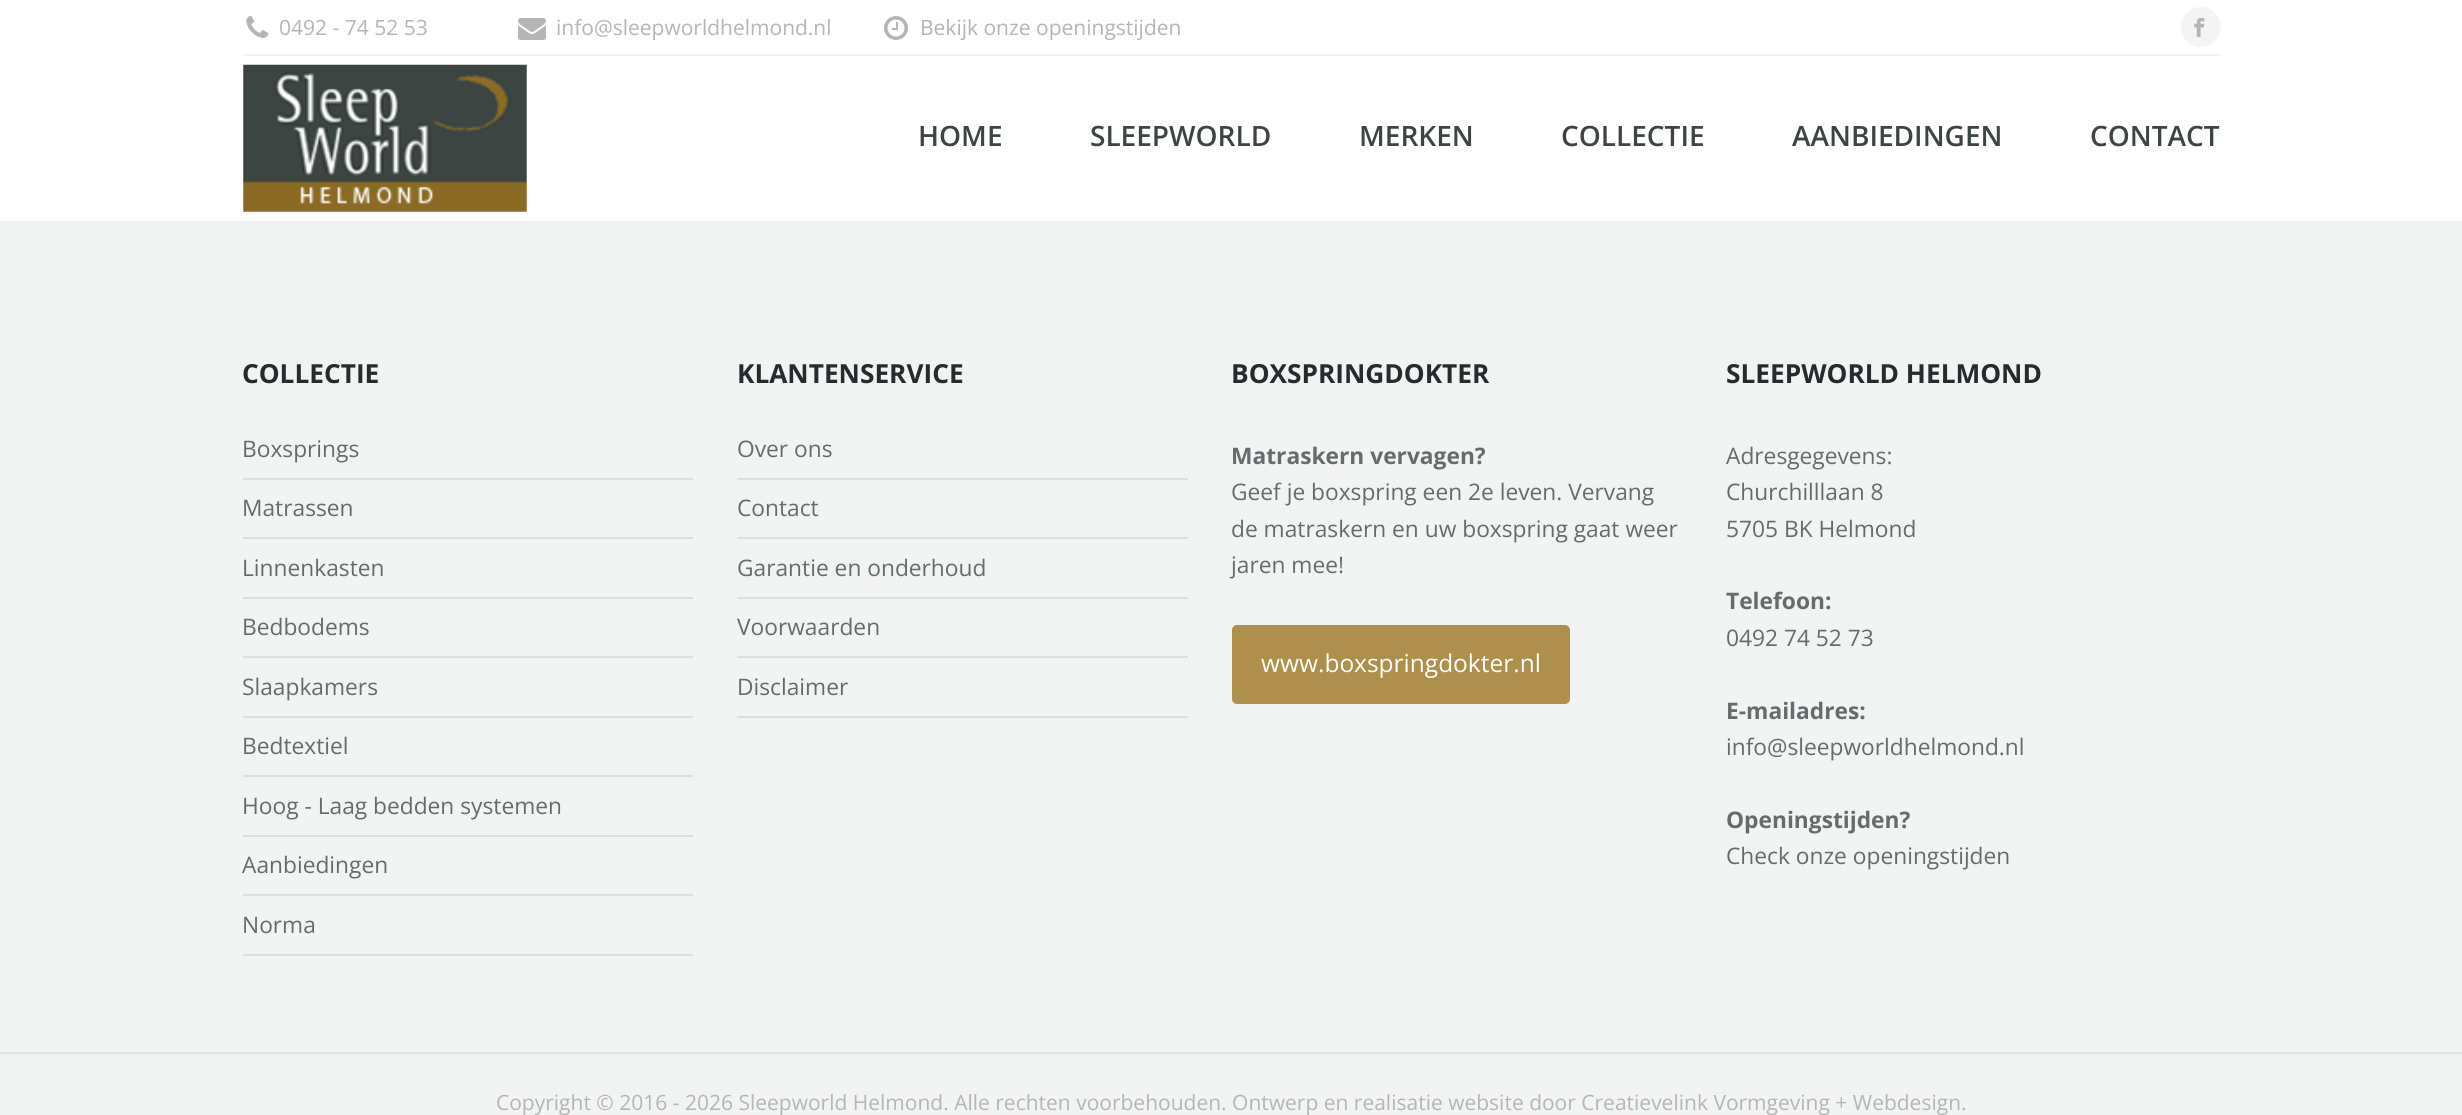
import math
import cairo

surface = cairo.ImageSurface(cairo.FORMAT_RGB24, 2462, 1115)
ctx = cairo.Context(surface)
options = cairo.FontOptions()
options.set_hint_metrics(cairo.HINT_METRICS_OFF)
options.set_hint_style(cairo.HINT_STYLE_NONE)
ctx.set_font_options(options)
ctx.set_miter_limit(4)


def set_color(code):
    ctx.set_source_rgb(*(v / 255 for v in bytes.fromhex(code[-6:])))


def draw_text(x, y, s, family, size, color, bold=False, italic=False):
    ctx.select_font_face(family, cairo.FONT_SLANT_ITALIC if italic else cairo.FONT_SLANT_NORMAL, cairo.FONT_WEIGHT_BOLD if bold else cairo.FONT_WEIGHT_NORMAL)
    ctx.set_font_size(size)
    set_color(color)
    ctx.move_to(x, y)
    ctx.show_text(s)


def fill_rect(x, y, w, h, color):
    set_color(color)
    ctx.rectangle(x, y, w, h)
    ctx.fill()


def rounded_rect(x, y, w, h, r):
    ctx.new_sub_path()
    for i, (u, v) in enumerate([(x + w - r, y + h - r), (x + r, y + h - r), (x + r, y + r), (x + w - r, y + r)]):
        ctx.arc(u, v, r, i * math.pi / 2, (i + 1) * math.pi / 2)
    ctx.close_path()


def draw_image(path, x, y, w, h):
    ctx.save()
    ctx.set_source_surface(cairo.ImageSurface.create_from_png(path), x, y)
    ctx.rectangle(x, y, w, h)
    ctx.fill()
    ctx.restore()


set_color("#ffffff")
ctx.paint()
fill_rect(243, 54, 1978, 2, "#f4f4f4")
draw_image("assets/img1.png", 246, 16, 23, 22)
draw_text(279, 35, "0492 - 74 52 53", "Open Sans", 21, "#b3b5b6")
draw_image("assets/img2.png", 518, 18, 28, 22)
draw_text(556, 35, "info@sleepworldhelmond.nl", "Open Sans", 21, "#b3b5b6")
draw_image("assets/img3.png", 884, 16, 24, 24)
draw_text(920, 35, "Bekijk onze openingstijden", "Open Sans", 21, "#b3b5b6")
set_color("#f4f4f4")
ctx.new_path()
ctx.arc(2201, 27, 20, 0, 2 * math.pi)
ctx.fill()
draw_image("assets/img4.png", 2194, 18, 11, 19)
draw_image("assets/img5.png", 243, 64, 284, 148)
draw_text(918, 146, "HOME", "Open Sans SemiBold", 28, "#3c4542")
draw_text(1090, 146, "SLEEPWORLD", "Open Sans SemiBold", 28, "#3c4542")
draw_text(1359, 146, "MERKEN", "Open Sans SemiBold", 28, "#3c4542")
draw_text(1561, 146, "COLLECTIE", "Open Sans SemiBold", 28, "#3c4542")
draw_text(1792, 146, "AANBIEDINGEN", "Open Sans SemiBold", 28, "#3c4542")
draw_text(2090, 146, "CONTACT", "Open Sans SemiBold", 28, "#3c4542")
fill_rect(0, 221, 2462, 831, "#f2f3f3")
draw_text(242, 383, "COLLECTIE", "Open Sans", 26.25, "#262b2e", bold=True)
fill_rect(243, 478, 450, 2, "#dddfdf")
draw_text(242, 457, "Boxsprings", "Open Sans", 22.75, "#676b6d")
fill_rect(243, 537, 450, 2, "#dddfdf")
draw_text(242, 516, "Matrassen", "Open Sans", 22.75, "#676b6d")
fill_rect(243, 597, 450, 2, "#dddfdf")
draw_text(242, 576, "Linnenkasten", "Open Sans", 22.75, "#676b6d")
fill_rect(243, 656, 450, 2, "#dddfdf")
draw_text(242, 635, "Bedbodems", "Open Sans", 22.75, "#676b6d")
fill_rect(243, 716, 450, 2, "#dddfdf")
draw_text(242, 695, "Slaapkamers", "Open Sans", 22.75, "#676b6d")
fill_rect(243, 775, 450, 2, "#dddfdf")
draw_text(242, 754, "Bedtextiel", "Open Sans", 22.75, "#676b6d")
fill_rect(243, 835, 450, 2, "#dddfdf")
draw_text(242, 814, "Hoog - Laag bedden systemen", "Open Sans", 22.75, "#676b6d")
fill_rect(243, 894, 450, 2, "#dddfdf")
draw_text(242, 873, "Aanbiedingen", "Open Sans", 22.75, "#676b6d")
fill_rect(243, 954, 450, 2, "#dddfdf")
draw_text(242, 933, "Norma", "Open Sans", 22.75, "#676b6d")
draw_text(737, 383, "KLANTENSERVICE", "Open Sans", 26.25, "#262b2e", bold=True)
fill_rect(737, 478, 451, 2, "#dddfdf")
draw_text(737, 457, "Over ons", "Open Sans", 22.75, "#676b6d")
fill_rect(737, 537, 451, 2, "#dddfdf")
draw_text(737, 516, "Contact", "Open Sans", 22.75, "#676b6d")
fill_rect(737, 597, 451, 2, "#dddfdf")
draw_text(737, 576, "Garantie en onderhoud", "Open Sans", 22.75, "#676b6d")
fill_rect(737, 656, 451, 2, "#dddfdf")
draw_text(737, 635, "Voorwaarden", "Open Sans", 22.75, "#676b6d")
fill_rect(737, 716, 451, 2, "#dddfdf")
draw_text(737, 695, "Disclaimer", "Open Sans", 22.75, "#676b6d")
draw_text(1231, 383, "BOXSPRINGDOKTER", "Open Sans", 26.25, "#262b2e", bold=True)
draw_text(1231, 464, "Matraskern vervagen?", "Open Sans", 22.75, "#676b6d", bold=True)
draw_text(1231, 500, "Geef je boxspring een 2e leven. Vervang", "Open Sans", 22.75, "#676b6d")
draw_text(1231, 537, "de matraskern en uw boxspring gaat weer", "Open Sans", 22.75, "#676b6d")
draw_text(1231, 573, "jaren mee!", "Open Sans", 22.75, "#676b6d")
set_color("#ae8f4b")
rounded_rect(1233, 626, 336, 77, 4)
ctx.fill_preserve()
ctx.stroke()
draw_text(1261, 672, "www.boxspringdokter.nl", "Open Sans", 24.5, "#ffffff")
draw_text(1726, 383, "SLEEPWORLD HELMOND", "Open Sans", 26.25, "#262b2e", bold=True)
draw_text(1726, 464, "Adresgegevens:", "Open Sans", 22.75, "#676b6d")
draw_text(1726, 500, "Churchilllaan 8", "Open Sans", 22.75, "#676b6d")
draw_text(1726, 537, "5705 BK Helmond", "Open Sans", 22.75, "#676b6d")
draw_text(1726, 609, "Telefoon:", "Open Sans", 22.75, "#676b6d", bold=True)
draw_text(1726, 646, "0492 74 52 73", "Open Sans", 22.75, "#676b6d")
draw_text(1726, 719, "E-mailadres:", "Open Sans", 22.75, "#676b6d", bold=True)
draw_text(1726, 755, "info@sleepworldhelmond.nl", "Open Sans", 22.75, "#676b6d")
draw_text(1726, 828, "Openingstijden?", "Open Sans", 22.75, "#676b6d", bold=True)
draw_text(1726, 864, "Check onze openingstijden", "Open Sans", 22.75, "#676b6d")
fill_rect(0, 1054, 2462, 61, "#f2f3f3")
fill_rect(0, 1052, 2462, 2, "#e1e2e3")
draw_text(496, 1110, "Copyright © 2016 - 2026 Sleepworld Helmond. Alle rechten voorbehouden. Ontwerp en realisatie website door Creatievelink Vormgeving + Webdesign.", "Open Sans", 21, "#b3b5b6")
surface.write_to_png("output.png")
